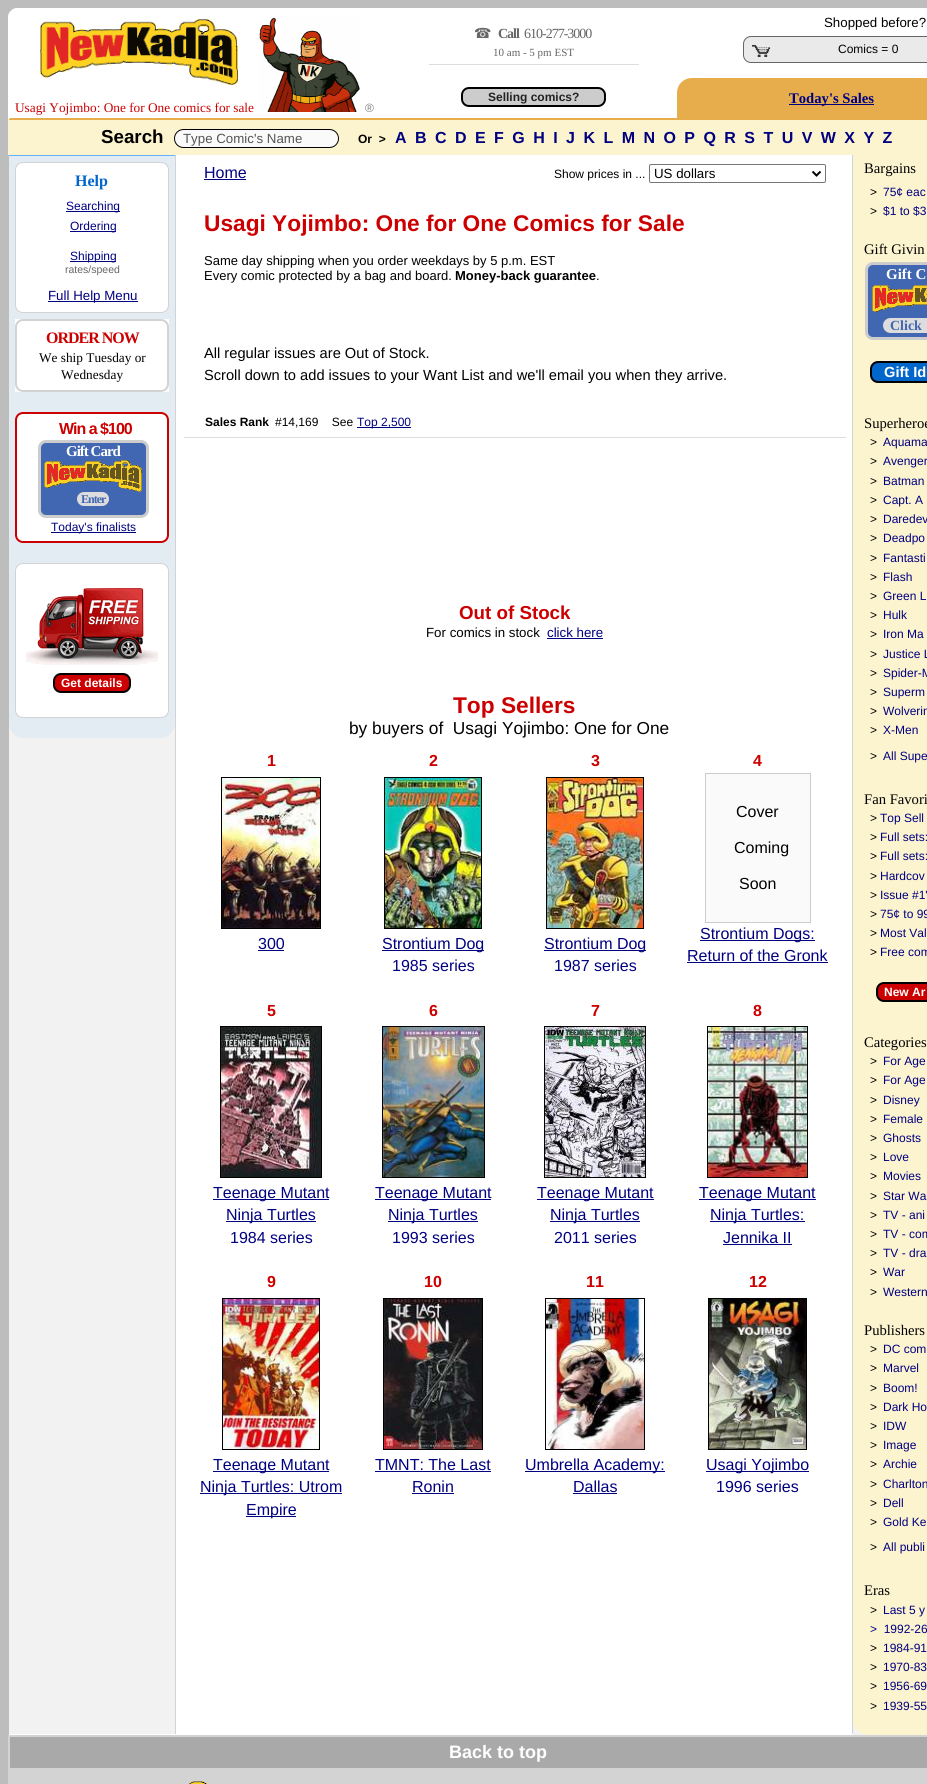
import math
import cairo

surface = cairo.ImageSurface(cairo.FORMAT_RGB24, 927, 1784)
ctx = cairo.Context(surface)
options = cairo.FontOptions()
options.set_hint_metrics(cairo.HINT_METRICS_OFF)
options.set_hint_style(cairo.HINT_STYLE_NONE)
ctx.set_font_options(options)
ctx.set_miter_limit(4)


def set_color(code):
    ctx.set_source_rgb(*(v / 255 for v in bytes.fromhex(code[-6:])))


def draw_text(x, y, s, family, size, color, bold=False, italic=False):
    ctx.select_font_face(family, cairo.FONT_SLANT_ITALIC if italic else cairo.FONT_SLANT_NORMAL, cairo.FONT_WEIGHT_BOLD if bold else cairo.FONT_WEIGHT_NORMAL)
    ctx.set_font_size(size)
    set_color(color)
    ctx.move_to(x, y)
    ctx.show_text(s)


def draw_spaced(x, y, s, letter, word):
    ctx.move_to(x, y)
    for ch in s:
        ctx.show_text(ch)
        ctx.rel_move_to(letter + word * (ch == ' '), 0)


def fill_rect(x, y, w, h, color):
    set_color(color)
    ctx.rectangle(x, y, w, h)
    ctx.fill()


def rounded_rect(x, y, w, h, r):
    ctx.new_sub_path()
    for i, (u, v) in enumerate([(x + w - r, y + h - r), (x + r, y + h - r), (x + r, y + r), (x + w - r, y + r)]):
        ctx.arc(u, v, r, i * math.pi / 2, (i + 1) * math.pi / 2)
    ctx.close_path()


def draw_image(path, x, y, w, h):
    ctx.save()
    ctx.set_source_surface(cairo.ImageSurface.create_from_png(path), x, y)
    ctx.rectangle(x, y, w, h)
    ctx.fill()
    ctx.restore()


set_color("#bdbdbd")
ctx.paint()
set_color("#ffffff")
ctx.new_path()
ctx.move_to(18, 8)
ctx.line_to(927, 8)
ctx.curve_to(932.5, 8, 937, 12.5, 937, 18)
ctx.line_to(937, 120)
ctx.line_to(8, 120)
ctx.line_to(8, 18)
ctx.curve_to(8, 12.5, 12.5, 8, 18, 8)
ctx.close_path()
ctx.fill()
ctx.new_path()
ctx.move_to(18, 8)
ctx.curve_to(15, 8, 12, 9, 11, 11)
ctx.line_to(12, 12)
ctx.curve_to(14, 11, 16, 10, 18, 10)
ctx.line_to(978, 10)
ctx.curve_to(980, 10, 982, 11, 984, 12)
ctx.line_to(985, 11)
ctx.curve_to(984, 9, 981, 8, 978, 8)
ctx.close_path()
ctx.fill()
set_color("#e7ad4c")
ctx.new_path()
ctx.move_to(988, 120)
ctx.line_to(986, 118)
ctx.line_to(10, 118)
ctx.line_to(8, 120)
ctx.close_path()
ctx.fill()
set_color("#ffffff")
ctx.new_path()
ctx.move_to(8, 120)
ctx.line_to(10, 118)
ctx.line_to(10, 18)
ctx.curve_to(10, 16, 11, 14, 12, 12)
ctx.line_to(11, 11)
ctx.curve_to(9, 12, 8, 15, 8, 18)
ctx.close_path()
ctx.fill()
ctx.select_font_face("DejaVu Sans")
ctx.set_font_size(14)
set_color("#666666")
draw_spaced(474, 38, "☎", -1, 0)
ctx.select_font_face("Liberation Serif", cairo.FONT_SLANT_NORMAL, cairo.FONT_WEIGHT_BOLD)
draw_spaced(498, 38, "Call", -1, 0)
ctx.select_font_face("Liberation Serif")
draw_spaced(524, 38, "610-277-3000", -1, 0)
draw_text(493, 56, "10 am - 5 pm EST", "Liberation Serif", 11, "#666666")
fill_rect(429, 64, 210, 1, "#dddddd")
set_color("#cccccc")
rounded_rect(462, 88, 143, 18, 7)
ctx.fill_preserve()
set_color("#000000")
ctx.stroke()
draw_text(488, 101, "Selling comics?", "Liberation Sans", 12, "#222222", bold=True)
draw_text(824, 27, "Shopped before?", "Liberation Sans", 13.3, "#000000")
set_color("#eaeaea")
rounded_rect(743.5, 36.5, 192, 26, 7.5)
ctx.fill_preserve()
set_color("#666666")
ctx.set_line_width(1)
ctx.stroke()
draw_image("assets/img1.png", 752, 45, 19, 12)
draw_text(838, 53, "Comics = 0", "Liberation Sans", 12, "#000000")
draw_image("assets/img2.png", 40, 19, 198, 66)
draw_text(15, 112, "Usagi Yojimbo: One for One comics for sale", "Liberation Serif", 13.3, "#cc0000")
draw_image("assets/img3.png", 259, 17, 101, 95)
draw_text(365, 112, "®", "Liberation Sans", 12, "#808080")
set_color("#e7ad4c")
ctx.new_path()
ctx.move_to(692, 78)
ctx.line_to(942, 78)
ctx.line_to(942, 118)
ctx.line_to(677, 118)
ctx.line_to(677, 93)
ctx.curve_to(677, 84.5, 683.5, 78, 692, 78)
ctx.close_path()
ctx.fill()
fill_rect(789, 104, 85, 1, "#000080")
draw_text(789, 103, "Today's Sales", "Liberation Serif", 14.65, "#000080", bold=True)
fill_rect(176, 155, 676, 1579, "#ffffff")
fill_rect(8, 120, 919, 35, "#fcf4ce")
draw_text(101, 143, "Search", "Liberation Sans", 18.75, "#000000", bold=True)
set_color("#fafafa")
rounded_rect(174.5, 129.5, 164, 18, 9)
ctx.fill_preserve()
set_color("#000000")
ctx.stroke()
draw_text(183, 143, "Type Comic's Name", "Liberation Sans", 13.3, "#555555")
draw_text(358, 143, "Or  >", "Liberation Sans", 12, "#000000", bold=True)
ctx.set_font_size(16)
set_color("#000080")
draw_spaced(395, 143, "A B C D E F G H I J K L M N O P Q R S T U V W X Y Z", 2, 0)
fill_rect(9, 723, 166, 1011, "#f2f2f2")
fill_rect(8, 155, 168, 1, "#62b2ff")
fill_rect(175, 155, 1, 1580, "#d3d3d3")
fill_rect(8, 1734, 168, 1, "#ffffff")
fill_rect(8, 155, 1, 1580, "#bdbdbd")
set_color("#e3ebf3")
ctx.new_path()
ctx.move_to(9, 156)
ctx.line_to(175, 156)
ctx.line_to(175, 723)
ctx.curve_to(175, 731.5, 168.5, 738, 160, 738)
ctx.line_to(24, 738)
ctx.curve_to(15.5, 738, 9, 731.5, 9, 723)
ctx.close_path()
ctx.fill()
set_color("#ffffff")
rounded_rect(15.5, 162.5, 153, 150, 7.5)
ctx.fill_preserve()
set_color("#d3d3d3")
ctx.stroke()
draw_text(75, 186, "Help", "Liberation Serif", 16, "#0066cc", bold=True)
fill_rect(66, 211, 54, 1, "#000080")
draw_text(66, 210, "Searching", "Liberation Sans", 12, "#000080")
fill_rect(70, 231, 46, 1, "#000080")
draw_text(70, 230, "Ordering", "Liberation Sans", 12, "#000080")
fill_rect(70, 261, 46, 1, "#000080")
draw_text(70, 260, "Shipping", "Liberation Sans", 12, "#000080")
draw_text(65, 273, "rates/speed", "Liberation Sans", 10.5, "#666666")
fill_rect(48, 301, 90, 1, "#000080")
draw_text(48, 300, "Full Help Menu", "Liberation Sans", 13.3, "#000080")
fill_rect(15, 319, 154, 73, "#ffffff")
rounded_rect(16, 320, 152, 71, 7)
set_color("#d3d3d3")
ctx.set_line_width(2)
ctx.stroke()
ctx.select_font_face("Liberation Serif", cairo.FONT_SLANT_NORMAL, cairo.FONT_WEIGHT_BOLD)
ctx.set_font_size(16)
set_color("#cc0000")
draw_spaced(46, 343, "ORDER NOW", -1, 0)
draw_text(39, 362, "We ship Tuesday or", "Liberation Serif", 13.3, "#000000")
draw_text(61, 379, "Wednesday", "Liberation Serif", 13.3, "#000000")
set_color("#ffffff")
rounded_rect(16, 413, 152, 129, 7)
ctx.fill_preserve()
set_color("#cc0000")
ctx.stroke()
ctx.select_font_face("Liberation Sans", cairo.FONT_SLANT_NORMAL, cairo.FONT_WEIGHT_BOLD)
ctx.set_font_size(16)
draw_spaced(59, 434, "Win a $100", -1, 0)
set_color("#4267b2")
rounded_rect(39.5, 441.5, 108, 75, 6.5)
ctx.fill_preserve()
set_color("#cccccc")
ctx.set_line_width(3)
ctx.stroke()
ctx.select_font_face("Liberation Serif", cairo.FONT_SLANT_NORMAL, cairo.FONT_WEIGHT_BOLD)
ctx.set_font_size(15)
set_color("#ffffff")
draw_spaced(66, 456, "Gift Card", -1, 0)
draw_image("assets/img4.png", 44, 460, 98, 32)
set_color("#dddddd")
rounded_rect(77, 492, 32, 14, 7)
ctx.fill()
ctx.set_font_size(12)
set_color("#4267b2")
draw_spaced(81, 503, "Enter", -1, 0)
fill_rect(51, 532, 85, 1, "#000080")
draw_text(51, 531, "Today's finalists", "Liberation Sans", 12, "#000080")
set_color("#ffffff")
rounded_rect(15.5, 563.5, 153, 154, 7.5)
ctx.fill_preserve()
set_color("#d3d3d3")
ctx.set_line_width(1)
ctx.stroke()
draw_image("assets/img5.png", 26, 588, 132, 77)
set_color("#cc0000")
rounded_rect(54, 674, 76, 18, 7)
ctx.fill_preserve()
set_color("#000000")
ctx.set_line_width(2)
ctx.stroke()
draw_text(61, 687, "Get details", "Liberation Sans", 12, "#ffffff", bold=True)
fill_rect(852, 155, 1, 1580, "#d3d3d3")
fill_rect(176, 1734, 677, 1, "#ffffff")
draw_text(204, 178, "Home", "Liberation Sans", 16, "#000080")
fill_rect(204, 179, 42, 1, "#000080")
draw_text(554, 178, "Show prices in ...", "Liberation Sans", 12, "#000000")
rounded_rect(649.5, 164.5, 176, 18, 1.5)
set_color("#767676")
ctx.set_line_width(1)
ctx.stroke()
ctx.new_path()
ctx.move_to(812.5, 171.5)
ctx.line_to(816.5, 175.5)
ctx.line_to(820.5, 171.5)
set_color("#000000")
ctx.set_line_width(2)
ctx.stroke()
draw_text(654, 178, "US dollars", "Liberation Sans", 13.3, "#000000")
draw_text(204, 231, "Usagi Yojimbo: One for One Comics for Sale", "Liberation Sans", 22.7, "#cc0000", bold=True)
draw_text(204, 265, "Same day shipping when you order weekdays by 5 p.m. EST", "Liberation Sans", 13, "#000000")
draw_text(204, 280, "Every comic protected by a bag and board.", "Liberation Sans", 13, "#000000")
draw_text(455, 280, "Money-back guarantee", "Liberation Sans", 13, "#000000", bold=True)
draw_text(596, 280, ".", "Liberation Sans", 13, "#000000")
draw_text(204, 358, "All regular issues are Out of Stock.", "Liberation Sans", 14.65, "#000000")
draw_text(204, 380, "Scroll down to add issues to your Want List and we'll email you when they arrive.", "Liberation Sans", 14.65, "#000000")
draw_text(205, 426, "Sales Rank", "Liberation Sans", 12, "#000000", bold=True)
draw_text(275, 426, "#14,169    See", "Liberation Sans", 12, "#000000")
fill_rect(357, 427, 54, 1, "#000080")
draw_text(357, 426, "Top 2,500", "Liberation Sans", 12, "#000080")
fill_rect(183, 437, 664, 1, "#dddddd")
fill_rect(846, 437, 1, 1, "#ffffff")
fill_rect(183, 437, 1, 1, "#ffffff")
draw_text(459, 619, "Out of Stock", "Liberation Sans", 18.75, "#cc0000", bold=True)
draw_text(426, 637, "For comics in stock", "Liberation Sans", 13.3, "#000000")
draw_text(547, 637, "click here", "Liberation Sans", 13.3, "#000080")
fill_rect(547, 638, 56, 1, "#000080")
draw_text(453, 713, "Top Sellers", "Liberation Sans", 22.7, "#cc0000", bold=True)
draw_text(349, 734, "by buyers of  Usagi Yojimbo: One for One", "Liberation Sans", 17.3, "#000000")
draw_text(267, 766, "1", "Liberation Sans", 16, "#cc0000", bold=True)
ctx.rectangle(221.5, 777.5, 99, 151)
set_color("#000000")
ctx.set_line_width(1)
ctx.stroke()
draw_image("assets/img6.png", 222, 778, 98, 150)
draw_text(258, 949, "300", "Liberation Sans", 16, "#000080")
fill_rect(258, 950, 26, 1, "#000080")
draw_text(429, 766, "2", "Liberation Sans", 16, "#cc0000", bold=True)
ctx.rectangle(384.5, 777.5, 97, 151)
set_color("#000000")
ctx.stroke()
draw_image("assets/img7.png", 385, 778, 96, 150)
fill_rect(382, 950, 102, 1, "#000080")
draw_text(382, 949, "Strontium Dog", "Liberation Sans", 16, "#000080")
draw_text(392, 971, "1985 series", "Liberation Sans", 16, "#000080")
draw_text(591, 766, "3", "Liberation Sans", 16, "#cc0000", bold=True)
ctx.rectangle(546.5, 777.5, 97, 151)
set_color("#000000")
ctx.stroke()
draw_image("assets/img8.png", 547, 778, 96, 150)
fill_rect(544, 950, 102, 1, "#000080")
draw_text(544, 949, "Strontium Dog", "Liberation Sans", 16, "#000080")
draw_text(554, 971, "1987 series", "Liberation Sans", 16, "#000080")
draw_text(753, 766, "4", "Liberation Sans", 16, "#cc0000", bold=True)
set_color("#fafafa")
ctx.rectangle(705.5, 773.5, 105, 149)
ctx.fill_preserve()
set_color("#cccccc")
ctx.stroke()
draw_text(736, 817, "Cover", "Liberation Sans", 16, "#000000")
draw_text(734, 853, "Coming", "Liberation Sans", 16, "#000000")
draw_text(739, 889, "Soon", "Liberation Sans", 16, "#000000")
fill_rect(700, 940, 115, 1, "#000080")
draw_text(700, 939, "Strontium Dogs:", "Liberation Sans", 16, "#000080")
draw_text(687, 961, "Return of the Gronk", "Liberation Sans", 16, "#000080")
fill_rect(687, 962, 141, 1, "#000080")
draw_text(267, 1016, "5", "Liberation Sans", 16, "#cc0000", bold=True)
ctx.rectangle(220.5, 1026.5, 101, 151)
set_color("#000000")
ctx.stroke()
draw_image("assets/img9.png", 221, 1027, 100, 150)
fill_rect(213, 1199, 116, 1, "#000080")
draw_text(213, 1198, "Teenage Mutant", "Liberation Sans", 16, "#000080")
fill_rect(226, 1221, 90, 1, "#000080")
draw_text(226, 1220, "Ninja Turtles", "Liberation Sans", 16, "#000080")
draw_text(230, 1243, "1984 series", "Liberation Sans", 16, "#000080")
draw_text(429, 1016, "6", "Liberation Sans", 16, "#cc0000", bold=True)
ctx.rectangle(382.5, 1026.5, 102, 151)
set_color("#000000")
ctx.stroke()
draw_image("assets/img10.png", 383, 1027, 101, 150)
fill_rect(375, 1199, 116, 1, "#000080")
draw_text(375, 1198, "Teenage Mutant", "Liberation Sans", 16, "#000080")
fill_rect(388, 1221, 90, 1, "#000080")
draw_text(388, 1220, "Ninja Turtles", "Liberation Sans", 16, "#000080")
draw_text(392, 1243, "1993 series", "Liberation Sans", 16, "#000080")
draw_text(591, 1016, "7", "Liberation Sans", 16, "#cc0000", bold=True)
ctx.rectangle(544.5, 1026.5, 101, 151)
set_color("#000000")
ctx.stroke()
draw_image("assets/img11.png", 545, 1027, 100, 150)
fill_rect(537, 1199, 117, 1, "#000080")
draw_text(537, 1198, "Teenage Mutant", "Liberation Sans", 16, "#000080")
fill_rect(550, 1221, 90, 1, "#000080")
draw_text(550, 1220, "Ninja Turtles", "Liberation Sans", 16, "#000080")
draw_text(554, 1243, "2011 series", "Liberation Sans", 16, "#000080")
draw_text(753, 1016, "8", "Liberation Sans", 16, "#cc0000", bold=True)
ctx.rectangle(707.5, 1026.5, 100, 151)
set_color("#000000")
ctx.stroke()
draw_image("assets/img12.png", 708, 1027, 99, 150)
fill_rect(699, 1199, 117, 1, "#000080")
draw_text(699, 1198, "Teenage Mutant", "Liberation Sans", 16, "#000080")
fill_rect(710, 1221, 95, 1, "#000080")
draw_text(710, 1220, "Ninja Turtles:", "Liberation Sans", 16, "#000080")
draw_text(723, 1243, "Jennika II", "Liberation Sans", 16, "#000080")
fill_rect(723, 1244, 69, 1, "#000080")
draw_text(267, 1287, "9", "Liberation Sans", 16, "#cc0000", bold=True)
ctx.rectangle(222.5, 1298.5, 97, 151)
set_color("#000000")
ctx.stroke()
draw_image("assets/img13.png", 223, 1299, 96, 150)
fill_rect(213, 1471, 116, 1, "#000080")
draw_text(213, 1470, "Teenage Mutant", "Liberation Sans", 16, "#000080")
fill_rect(200, 1493, 142, 1, "#000080")
draw_text(200, 1492, "Ninja Turtles: Utrom", "Liberation Sans", 16, "#000080")
fill_rect(246, 1516, 50, 1, "#000080")
draw_text(246, 1515, "Empire", "Liberation Sans", 16, "#000080")
draw_text(424, 1287, "10", "Liberation Sans", 16, "#cc0000", bold=True)
ctx.rectangle(383.5, 1298.5, 99, 151)
set_color("#000000")
ctx.stroke()
draw_image("assets/img14.png", 384, 1299, 98, 150)
draw_text(375, 1470, "TMNT: The Last", "Liberation Sans", 16, "#000080")
fill_rect(375, 1471, 116, 1, "#000080")
draw_text(412, 1492, "Ronin", "Liberation Sans", 16, "#000080")
fill_rect(412, 1493, 42, 1, "#000080")
draw_text(586, 1287, "11", "Liberation Sans", 16, "#cc0000", bold=True)
ctx.rectangle(545.5, 1298.5, 99, 151)
set_color("#000000")
ctx.stroke()
draw_image("assets/img15.png", 546, 1299, 98, 150)
fill_rect(525, 1471, 140, 1, "#000080")
draw_text(525, 1470, "Umbrella Academy:", "Liberation Sans", 16, "#000080")
draw_text(573, 1492, "Dallas", "Liberation Sans", 16, "#000080")
fill_rect(573, 1493, 44, 1, "#000080")
draw_text(749, 1287, "12", "Liberation Sans", 16, "#cc0000", bold=True)
ctx.rectangle(708.5, 1298.5, 98, 151)
set_color("#000000")
ctx.stroke()
draw_image("assets/img16.png", 709, 1299, 97, 150)
fill_rect(706, 1471, 103, 1, "#000080")
draw_text(706, 1470, "Usagi Yojimbo", "Liberation Sans", 16, "#000080")
draw_text(716, 1492, "1996 series", "Liberation Sans", 16, "#000080")
fill_rect(853, 1720, 15, 15, "#f2f2f2")
set_color("#fcf3cf")
ctx.new_path()
ctx.move_to(853, 155)
ctx.line_to(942, 155)
ctx.line_to(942, 1720)
ctx.curve_to(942, 1728.5, 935.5, 1735, 927, 1735)
ctx.line_to(868, 1735)
ctx.curve_to(859.5, 1735, 853, 1728.5, 853, 1720)
ctx.close_path()
ctx.fill()
draw_text(864, 173, "Bargains", "Liberation Serif", 14.65, "#000000")
draw_text(870, 196, ">", "Liberation Sans", 12, "#000000")
draw_text(883, 196, "75¢ eac", "Liberation Sans", 12, "#000080")
draw_text(870, 215, ">", "Liberation Sans", 12, "#000000")
draw_text(883, 215, "$1 to $3", "Liberation Sans", 12, "#000080")
draw_text(864, 254, "Gift Givin", "Liberation Serif", 14.65, "#000000")
set_color("#4267b2")
rounded_rect(866.5, 263.5, 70, 75, 6.5)
ctx.fill_preserve()
set_color("#cccccc")
ctx.set_line_width(3)
ctx.stroke()
draw_text(886, 279, "Gift C", "Liberation Serif", 15, "#ffffff", bold=True)
draw_image("assets/img17.png", 872, 285, 55, 27)
set_color("#dddddd")
rounded_rect(883, 318, 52, 15, 7.5)
ctx.fill()
draw_text(890, 330, "Click", "Liberation Serif", 14, "#4267b2", bold=True)
set_color("#0066cc")
rounded_rect(871, 362, 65, 20, 7)
ctx.fill_preserve()
set_color("#000000")
ctx.set_line_width(2)
ctx.stroke()
draw_text(884, 377, "Gift Id", "Liberation Sans", 14.65, "#ffffff", bold=True)
draw_text(864, 428, "Superheroe", "Liberation Serif", 14.65, "#000000")
draw_text(870, 446, ">", "Liberation Sans", 12, "#000000")
draw_text(883, 446, "Aquama", "Liberation Sans", 12, "#000080")
draw_text(870, 465, ">", "Liberation Sans", 12, "#000000")
draw_text(883, 465, "Avenger", "Liberation Sans", 12, "#000080")
draw_text(870, 485, ">", "Liberation Sans", 12, "#000000")
draw_text(883, 485, "Batman", "Liberation Sans", 12, "#000080")
draw_text(870, 504, ">", "Liberation Sans", 12, "#000000")
draw_text(883, 504, "Capt. A", "Liberation Sans", 12, "#000080")
draw_text(870, 523, ">", "Liberation Sans", 12, "#000000")
draw_text(883, 523, "Daredev", "Liberation Sans", 12, "#000080")
draw_text(870, 542, ">", "Liberation Sans", 12, "#000000")
draw_text(883, 542, "Deadpo", "Liberation Sans", 12, "#000080")
draw_text(870, 562, ">", "Liberation Sans", 12, "#000000")
draw_text(883, 562, "Fantasti", "Liberation Sans", 12, "#000080")
draw_text(870, 581, ">", "Liberation Sans", 12, "#000000")
draw_text(883, 581, "Flash", "Liberation Sans", 12, "#000080")
draw_text(870, 600, ">", "Liberation Sans", 12, "#000000")
draw_text(883, 600, "Green L", "Liberation Sans", 12, "#000080")
draw_text(870, 619, ">", "Liberation Sans", 12, "#000000")
draw_text(883, 619, "Hulk", "Liberation Sans", 12, "#000080")
draw_text(870, 638, ">", "Liberation Sans", 12, "#000000")
draw_text(883, 638, "Iron Ma", "Liberation Sans", 12, "#000080")
draw_text(870, 658, ">", "Liberation Sans", 12, "#000000")
draw_text(883, 658, "Justice L", "Liberation Sans", 12, "#000080")
draw_text(870, 677, ">", "Liberation Sans", 12, "#000000")
draw_text(883, 677, "Spider-M", "Liberation Sans", 12, "#000080")
draw_text(870, 696, ">", "Liberation Sans", 12, "#000000")
draw_text(883, 696, "Superm", "Liberation Sans", 12, "#000080")
draw_text(870, 715, ">", "Liberation Sans", 12, "#000000")
draw_text(883, 715, "Wolverin", "Liberation Sans", 12, "#000080")
draw_text(870, 734, ">", "Liberation Sans", 12, "#000000")
draw_text(883, 734, "X-Men", "Liberation Sans", 12, "#000080")
draw_text(870, 760, ">", "Liberation Sans", 12, "#000000")
draw_text(883, 760, "All Supe", "Liberation Sans", 12, "#000080")
draw_text(864, 804, "Fan Favori", "Liberation Serif", 14.65, "#000000")
draw_text(870, 822, ">", "Liberation Sans", 12, "#000000")
draw_text(880, 822, "Top Sell", "Liberation Sans", 12, "#000080")
draw_text(870, 841, ">", "Liberation Sans", 12, "#000000")
draw_text(880, 841, "Full sets:", "Liberation Sans", 12, "#000080")
draw_text(870, 860, ">", "Liberation Sans", 12, "#000000")
draw_text(880, 860, "Full sets:", "Liberation Sans", 12, "#000080")
draw_text(870, 880, ">", "Liberation Sans", 12, "#000000")
draw_text(880, 880, "Hardcov", "Liberation Sans", 12, "#000080")
draw_text(870, 899, ">", "Liberation Sans", 12, "#000000")
draw_text(880, 899, "Issue #1'", "Liberation Sans", 12, "#000080")
draw_text(870, 918, ">", "Liberation Sans", 12, "#000000")
draw_text(880, 918, "75¢ to 99", "Liberation Sans", 12, "#000080")
draw_text(870, 937, ">", "Liberation Sans", 12, "#000000")
draw_text(880, 937, "Most Val", "Liberation Sans", 12, "#000080")
draw_text(870, 956, ">", "Liberation Sans", 12, "#000000")
draw_text(880, 956, "Free com", "Liberation Sans", 12, "#000080")
set_color("#cc0000")
rounded_rect(877, 983, 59, 18, 7)
ctx.fill_preserve()
set_color("#000000")
ctx.stroke()
draw_text(884, 996, "New Ar", "Liberation Sans", 12, "#ffffff", bold=True)
draw_text(864, 1047, "Categories", "Liberation Serif", 14.65, "#000000")
draw_text(870, 1065, ">", "Liberation Sans", 12, "#000000")
draw_text(883, 1065, "For Age", "Liberation Sans", 12, "#000080")
draw_text(870, 1084, ">", "Liberation Sans", 12, "#000000")
draw_text(883, 1084, "For Age", "Liberation Sans", 12, "#000080")
draw_text(870, 1104, ">", "Liberation Sans", 12, "#000000")
draw_text(883, 1104, "Disney", "Liberation Sans", 12, "#000080")
draw_text(870, 1123, ">", "Liberation Sans", 12, "#000000")
draw_text(883, 1123, "Female", "Liberation Sans", 12, "#000080")
draw_text(870, 1142, ">", "Liberation Sans", 12, "#000000")
draw_text(883, 1142, "Ghosts", "Liberation Sans", 12, "#000080")
draw_text(870, 1161, ">", "Liberation Sans", 12, "#000000")
draw_text(883, 1161, "Love", "Liberation Sans", 12, "#000080")
draw_text(870, 1180, ">", "Liberation Sans", 12, "#000000")
draw_text(883, 1180, "Movies", "Liberation Sans", 12, "#000080")
draw_text(870, 1200, ">", "Liberation Sans", 12, "#000000")
draw_text(883, 1200, "Star Wa", "Liberation Sans", 12, "#000080")
draw_text(870, 1219, ">", "Liberation Sans", 12, "#000000")
draw_text(883, 1219, "TV - ani", "Liberation Sans", 12, "#000080")
draw_text(870, 1238, ">", "Liberation Sans", 12, "#000000")
draw_text(883, 1238, "TV - com", "Liberation Sans", 12, "#000080")
draw_text(870, 1257, ">", "Liberation Sans", 12, "#000000")
draw_text(883, 1257, "TV - dra", "Liberation Sans", 12, "#000080")
draw_text(870, 1276, ">", "Liberation Sans", 12, "#000000")
draw_text(883, 1276, "War", "Liberation Sans", 12, "#000080")
draw_text(870, 1296, ">", "Liberation Sans", 12, "#000000")
draw_text(883, 1296, "Western", "Liberation Sans", 12, "#000080")
draw_text(864, 1335, "Publishers", "Liberation Serif", 14.65, "#000000")
draw_text(870, 1353, ">", "Liberation Sans", 12, "#000000")
draw_text(883, 1353, "DC com", "Liberation Sans", 12, "#000080")
draw_text(870, 1372, ">", "Liberation Sans", 12, "#000000")
draw_text(883, 1372, "Marvel", "Liberation Sans", 12, "#000080")
draw_text(870, 1392, ">", "Liberation Sans", 12, "#000000")
draw_text(883, 1392, "Boom!", "Liberation Sans", 12, "#000080")
draw_text(870, 1411, ">", "Liberation Sans", 12, "#000000")
draw_text(883, 1411, "Dark Ho", "Liberation Sans", 12, "#000080")
draw_text(870, 1430, ">", "Liberation Sans", 12, "#000000")
draw_text(883, 1430, "IDW", "Liberation Sans", 12, "#000080")
draw_text(870, 1449, ">", "Liberation Sans", 12, "#000000")
draw_text(883, 1449, "Image", "Liberation Sans", 12, "#000080")
draw_text(870, 1468, ">", "Liberation Sans", 12, "#000000")
draw_text(883, 1468, "Archie", "Liberation Sans", 12, "#000080")
draw_text(870, 1488, ">", "Liberation Sans", 12, "#000000")
draw_text(883, 1488, "Charlton", "Liberation Sans", 12, "#000080")
draw_text(870, 1507, ">", "Liberation Sans", 12, "#000000")
draw_text(883, 1507, "Dell", "Liberation Sans", 12, "#000080")
draw_text(870, 1526, ">", "Liberation Sans", 12, "#000000")
draw_text(883, 1526, "Gold Ke", "Liberation Sans", 12, "#000080")
draw_text(870, 1551, ">", "Liberation Sans", 12, "#000000")
draw_text(883, 1551, "All publi", "Liberation Sans", 12, "#000080")
draw_text(864, 1595, "Eras", "Liberation Serif", 14.65, "#000000")
draw_text(870, 1614, ">", "Liberation Sans", 12, "#000000")
draw_text(883, 1614, "Last 5 y", "Liberation Sans", 12, "#000080")
draw_text(870, 1633, ">  1992-26", "Liberation Sans", 12, "#000080")
draw_text(870, 1652, ">", "Liberation Sans", 12, "#000000")
draw_text(883, 1652, "1984-91", "Liberation Sans", 12, "#000080")
draw_text(870, 1671, ">", "Liberation Sans", 12, "#000000")
draw_text(883, 1671, "1970-83", "Liberation Sans", 12, "#000080")
draw_text(870, 1690, ">", "Liberation Sans", 12, "#000000")
draw_text(883, 1690, "1956-69", "Liberation Sans", 12, "#000080")
draw_text(870, 1710, ">", "Liberation Sans", 12, "#000000")
draw_text(883, 1710, "1939-55", "Liberation Sans", 12, "#000080")
fill_rect(8, 1735, 919, 49, "#d3d3d3")
fill_rect(10, 1737, 917, 31, "#a9a9a9")
draw_text(449, 1758, "Back to top", "Liberation Sans", 18, "#ffffff", bold=True)
draw_image("assets/img18.png", 189, 1781, 18, 3)
surface.write_to_png("output.png")
